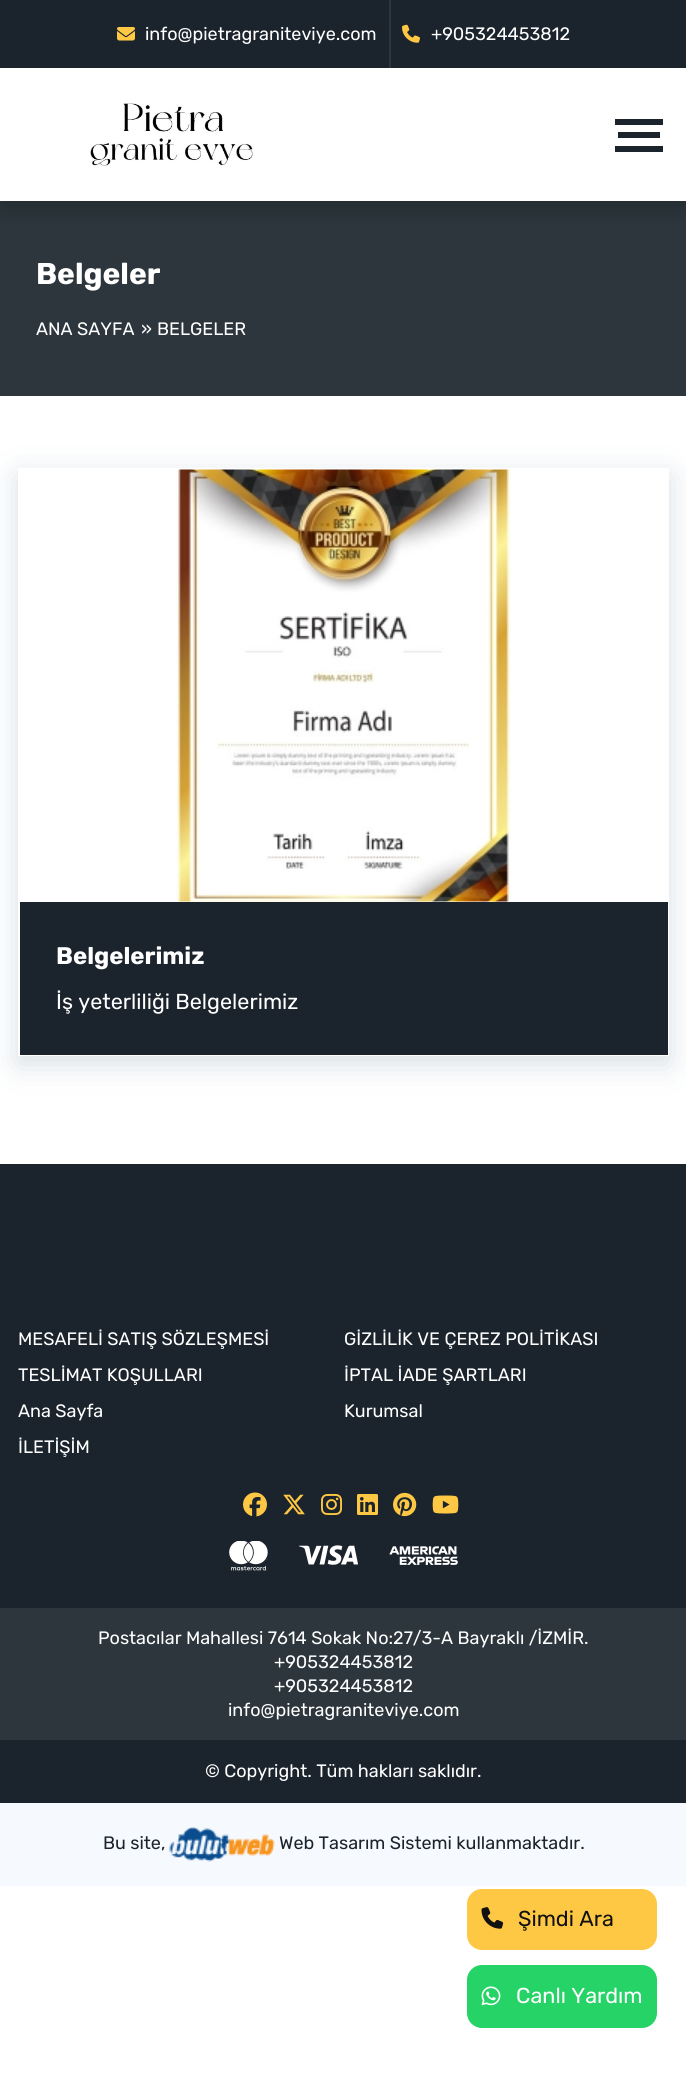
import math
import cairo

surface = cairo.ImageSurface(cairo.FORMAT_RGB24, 686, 2073)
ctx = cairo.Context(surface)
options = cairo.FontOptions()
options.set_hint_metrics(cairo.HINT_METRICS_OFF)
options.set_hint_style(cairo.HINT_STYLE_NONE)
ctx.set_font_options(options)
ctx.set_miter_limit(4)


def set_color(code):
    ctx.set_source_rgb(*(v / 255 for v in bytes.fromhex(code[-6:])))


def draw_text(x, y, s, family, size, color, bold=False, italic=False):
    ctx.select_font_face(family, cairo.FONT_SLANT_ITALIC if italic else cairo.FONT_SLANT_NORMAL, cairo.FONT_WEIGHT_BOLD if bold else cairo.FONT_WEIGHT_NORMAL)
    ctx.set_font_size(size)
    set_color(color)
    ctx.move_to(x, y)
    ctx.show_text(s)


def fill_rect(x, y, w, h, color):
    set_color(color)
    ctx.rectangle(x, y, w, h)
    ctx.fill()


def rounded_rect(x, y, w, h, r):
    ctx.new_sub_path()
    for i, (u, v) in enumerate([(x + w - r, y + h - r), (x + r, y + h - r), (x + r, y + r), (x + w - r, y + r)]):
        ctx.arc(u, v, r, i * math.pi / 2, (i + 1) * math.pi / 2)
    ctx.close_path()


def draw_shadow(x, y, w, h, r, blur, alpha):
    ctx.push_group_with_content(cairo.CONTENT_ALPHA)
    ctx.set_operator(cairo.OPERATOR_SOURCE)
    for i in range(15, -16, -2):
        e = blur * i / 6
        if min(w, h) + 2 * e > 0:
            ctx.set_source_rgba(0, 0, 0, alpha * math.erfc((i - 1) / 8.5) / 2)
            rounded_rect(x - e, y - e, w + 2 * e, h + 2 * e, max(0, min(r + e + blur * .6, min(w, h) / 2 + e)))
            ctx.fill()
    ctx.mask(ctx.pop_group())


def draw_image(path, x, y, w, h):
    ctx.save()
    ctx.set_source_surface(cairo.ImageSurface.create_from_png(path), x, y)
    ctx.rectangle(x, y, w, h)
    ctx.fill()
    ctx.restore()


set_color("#ffffff")
ctx.paint()
fill_rect(0, 201, 686, 195, "#2c363c")
ctx.save()
ctx.rectangle(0, 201, 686, 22)
ctx.clip()
set_color("#000000")
draw_shadow(0, 75, 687, 134, 0, 11, 0.2)
ctx.restore()
fill_rect(0, 0, 686, 68, "#1b232c")
draw_image("assets/img1.png", 117, 27, 18, 14)
draw_text(145, 40, "info@pietragraniteviye.com", "Rubik", 18, "#ffffff")
fill_rect(389, 0, 2, 68, "#2c363c")
draw_image("assets/img2.png", 402, 24, 18, 19)
draw_text(431, 40, "+905324453812", "Rubik", 18, "#ffffff")
draw_image("assets/img3.png", 90, 103, 163, 64)
fill_rect(615, 119, 48, 6, "#1b232c")
fill_rect(618, 132, 42, 6, "#1b232c")
fill_rect(615, 146, 48, 6, "#1b232c")
draw_text(36, 284, "Belgeler", "Rubik", 30, "#ffffff", bold=True)
draw_text(36, 335, "ANA SAYFA", "Rubik", 18, "#ffffff")
draw_text(141, 335, "»", "Rubik", 18, "#ffffff")
draw_text(157, 335, "BELGELER", "Rubik", 18, "#ffffff")
ctx.save()
ctx.set_fill_rule(cairo.FILL_RULE_EVEN_ODD)
ctx.new_path()
ctx.move_to(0, 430)
ctx.line_to(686, 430)
ctx.line_to(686, 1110)
ctx.line_to(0, 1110)
ctx.close_path()
ctx.move_to(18, 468)
ctx.line_to(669, 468)
ctx.line_to(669, 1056)
ctx.line_to(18, 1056)
ctx.close_path()
ctx.clip()
set_color("#3a5f7a")
draw_shadow(18, 476, 651, 588, 0, 15, 0.2)
ctx.restore()
draw_image("assets/img4.png", 176, 469, 335, 433)
fill_rect(20, 902, 648, 153, "#1b232c")
draw_text(56, 964, "Belgelerimiz", "Rubik", 24, "#ffffff", bold=True)
draw_text(56, 1009, "İş yeterliliği Belgelerimiz", "Rubik", 21.6, "#ffffff")
fill_rect(0, 1164, 686, 639, "#1b232c")
draw_text(18, 1345, "MESAFELİ SATIŞ SÖZLEŞMESİ", "Rubik", 18, "#ffffff")
draw_text(344, 1345, "GİZLİLİK VE ÇEREZ POLİTİKASI", "Rubik", 18, "#ffffff")
draw_text(18, 1381, "TESLİMAT KOŞULLARI", "Rubik", 18, "#ffffff")
draw_text(344, 1381, "İPTAL İADE ŞARTLARI", "Rubik", 18, "#ffffff")
draw_text(18, 1417, "Ana Sayfa", "Rubik", 18, "#ffffff")
draw_text(344, 1417, "Kurumsal", "Rubik", 18, "#ffffff")
draw_text(18, 1453, "İLETİŞİM", "Rubik", 18, "#ffffff")
draw_image("assets/img5.png", 243, 1492, 24, 25)
draw_image("assets/img6.png", 283, 1494, 22, 21)
draw_image("assets/img7.png", 321, 1494, 21, 21)
draw_image("assets/img8.png", 357, 1494, 21, 21)
draw_image("assets/img9.png", 393, 1492, 24, 25)
draw_image("assets/img10.png", 432, 1495, 27, 19)
draw_image("assets/img11.png", 229, 1541, 229, 30)
fill_rect(0, 1608, 686, 132, "#2c363c")
draw_text(98, 1644, "Postacılar Mahallesi 7614 Sokak No:27/3-A Bayraklı /İZMİR.", "Rubik", 18, "#ffffff")
draw_text(274, 1668, "+905324453812", "Rubik", 18, "#ffffff")
draw_text(274, 1692, "+905324453812", "Rubik", 18, "#ffffff")
draw_text(228, 1716, "info@pietragraniteviye.com", "Rubik", 18, "#ffffff")
draw_text(205, 1777, "© Copyright. Tüm hakları saklıdır.", "Rubik", 18, "#ffffff")
fill_rect(0, 1803, 686, 83, "#f6faff")
draw_text(103, 1849, "Bu site,", "Rubik", 18, "#1b232c")
draw_image("assets/img12.png", 169, 1827, 106, 35)
draw_text(279, 1849, "Web Tasarım Sistemi kullanmaktadır.", "Rubik", 18, "#1b232c")
set_color("#ffc844")
rounded_rect(467, 1889, 190, 61, 15)
ctx.fill()
draw_image("assets/img13.png", 481, 1907, 23, 22)
draw_text(518, 1926, "Şimdi Ara", "Rubik", 21.6, "#111111")
set_color("#25d366")
rounded_rect(467, 1965, 190, 63, 15)
ctx.fill()
draw_image("assets/img14.png", 481, 1986, 20, 20)
draw_text(516, 2003, "Canlı Yardım", "Rubik", 21.6, "#ffffff")
surface.write_to_png("output.png")
